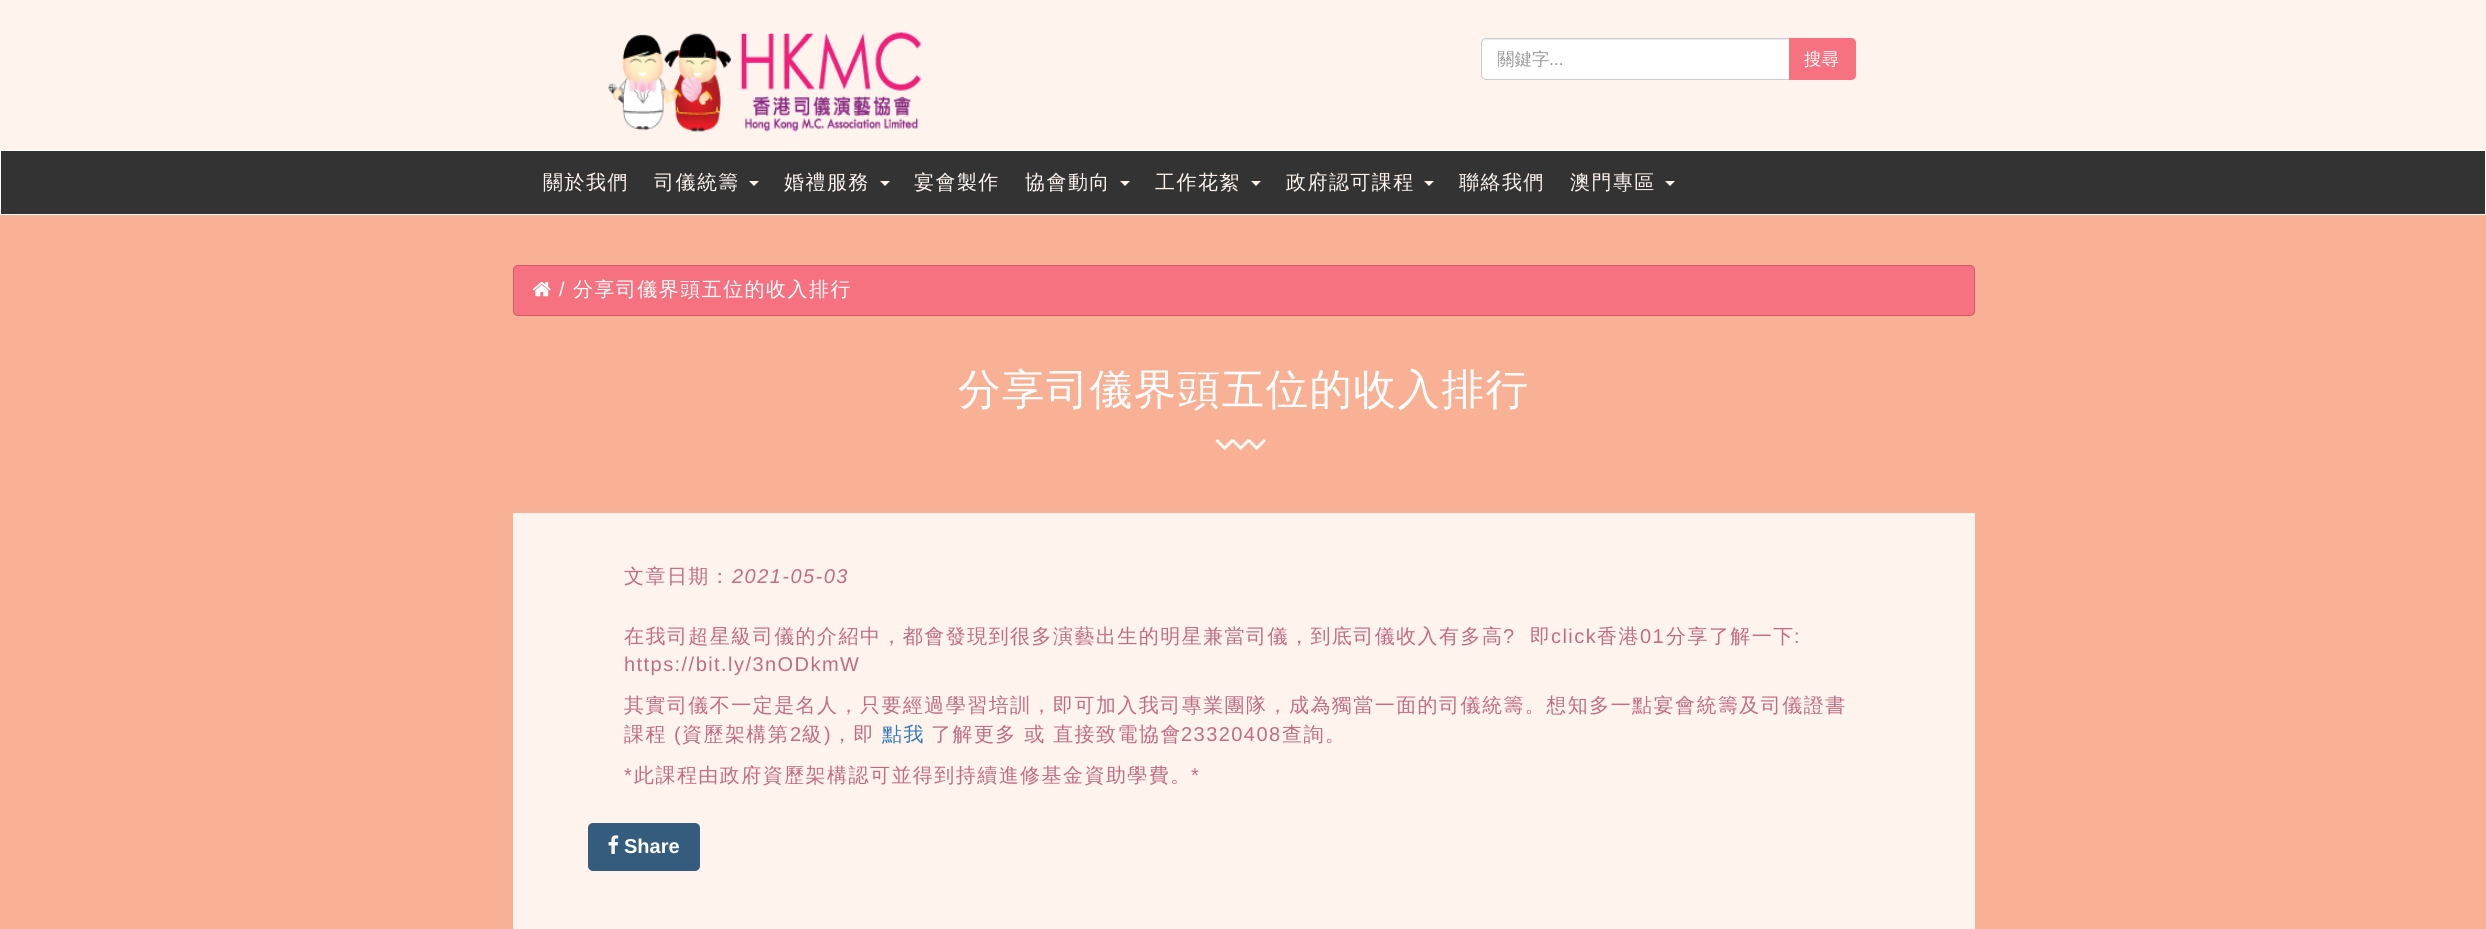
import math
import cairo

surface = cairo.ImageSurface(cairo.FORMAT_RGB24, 2486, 929)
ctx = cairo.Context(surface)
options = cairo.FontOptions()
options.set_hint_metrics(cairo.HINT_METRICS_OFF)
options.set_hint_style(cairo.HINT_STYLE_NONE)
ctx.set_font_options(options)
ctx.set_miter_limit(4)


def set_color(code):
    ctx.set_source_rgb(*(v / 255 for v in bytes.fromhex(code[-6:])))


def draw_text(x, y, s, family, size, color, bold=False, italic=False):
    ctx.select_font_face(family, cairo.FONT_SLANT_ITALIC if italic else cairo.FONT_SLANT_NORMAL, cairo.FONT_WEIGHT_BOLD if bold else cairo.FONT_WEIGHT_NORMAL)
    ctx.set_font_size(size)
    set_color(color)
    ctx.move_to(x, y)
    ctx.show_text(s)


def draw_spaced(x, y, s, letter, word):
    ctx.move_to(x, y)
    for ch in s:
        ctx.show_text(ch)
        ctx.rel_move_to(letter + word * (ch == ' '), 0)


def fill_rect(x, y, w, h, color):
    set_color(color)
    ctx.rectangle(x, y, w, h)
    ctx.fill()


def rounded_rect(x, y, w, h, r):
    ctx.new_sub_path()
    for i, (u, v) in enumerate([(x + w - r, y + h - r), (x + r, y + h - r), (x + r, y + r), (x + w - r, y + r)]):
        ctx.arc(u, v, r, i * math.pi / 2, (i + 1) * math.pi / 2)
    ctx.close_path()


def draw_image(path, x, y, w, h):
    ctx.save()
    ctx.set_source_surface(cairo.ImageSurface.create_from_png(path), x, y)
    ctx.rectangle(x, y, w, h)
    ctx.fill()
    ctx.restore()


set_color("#ffffff")
ctx.paint()
fill_rect(0, 0, 2486, 150, "#fff3ee")
draw_image("assets/img1.png", 608, 32, 314, 100)
set_color("#ffffff")
ctx.new_path()
ctx.move_to(1486, 38)
ctx.line_to(1790, 38)
ctx.line_to(1790, 80)
ctx.line_to(1486, 80)
ctx.curve_to(1483, 80, 1481, 78, 1481, 75)
ctx.line_to(1481, 43)
ctx.curve_to(1481, 40, 1483, 38, 1486, 38)
ctx.close_path()
ctx.fill()
set_color("#ececec")
ctx.new_path()
ctx.move_to(1486, 40)
ctx.line_to(1789, 40)
ctx.line_to(1789, 39)
ctx.line_to(1487, 39)
ctx.curve_to(1486, 39, 1484, 40, 1484, 41)
ctx.close_path()
ctx.fill()
ctx.new_path()
ctx.move_to(1486, 38.5)
ctx.line_to(1789.5, 38.5)
ctx.line_to(1789.5, 79.5)
ctx.line_to(1486, 79.5)
ctx.curve_to(1483.5, 79.5, 1481.5, 77.5, 1481.5, 75)
ctx.line_to(1481.5, 43)
ctx.curve_to(1481.5, 40.5, 1483.5, 38.5, 1486, 38.5)
ctx.close_path()
set_color("#cccccc")
ctx.set_line_width(1)
ctx.stroke()
ctx.save()
ctx.rectangle(1498, 49, 276, 22)
ctx.clip()
draw_text(1497, 65, "關鍵字", "WenQuanYi Zen Hei Medium", 17.5, "#999999")
ctx.restore()
draw_text(1549, 65, "...", "Liberation Sans", 17.5, "#999999")
set_color("#f67280")
ctx.new_path()
ctx.move_to(1789, 38)
ctx.line_to(1851, 38)
ctx.curve_to(1854, 38, 1856, 40, 1856, 43)
ctx.line_to(1856, 75)
ctx.curve_to(1856, 78, 1854, 80, 1851, 80)
ctx.line_to(1789, 80)
ctx.close_path()
ctx.fill()
draw_text(1804, 65, "搜尋", "WenQuanYi Zen Hei Medium", 17.5, "#ffffff")
fill_rect(1, 151, 2484, 63, "#333333")
ctx.set_font_size(20)
set_color("#fff3ee")
draw_spaced(543, 189, "關於我們", 1.45, 0)
draw_spaced(654, 189, "司儀統籌", 1.45, 0)
ctx.new_path()
ctx.move_to(749, 181)
ctx.line_to(759, 181)
ctx.line_to(754, 186)
ctx.close_path()
ctx.fill()
draw_spaced(784, 189, "婚禮服務", 1.45, 0)
ctx.new_path()
ctx.move_to(880, 181)
ctx.line_to(890, 181)
ctx.line_to(885, 186)
ctx.close_path()
ctx.fill()
draw_spaced(914, 189, "宴會製作", 1.45, 0)
draw_spaced(1025, 189, "協會動向", 1.45, 0)
ctx.new_path()
ctx.move_to(1120, 181)
ctx.line_to(1130, 181)
ctx.line_to(1125, 186)
ctx.close_path()
ctx.fill()
draw_spaced(1155, 189, "工作花絮", 1.45, 0)
ctx.new_path()
ctx.move_to(1251, 181)
ctx.line_to(1261, 181)
ctx.line_to(1256, 186)
ctx.close_path()
ctx.fill()
draw_spaced(1286, 189, "政府認可課程", 1.45, 0)
ctx.new_path()
ctx.move_to(1424, 181)
ctx.line_to(1434, 181)
ctx.line_to(1429, 186)
ctx.close_path()
ctx.fill()
draw_spaced(1459, 189, "聯絡我們", 1.45, 0)
draw_spaced(1570, 189, "澳門專區", 1.45, 0)
ctx.new_path()
ctx.move_to(1665, 181)
ctx.line_to(1675, 181)
ctx.line_to(1670, 186)
ctx.close_path()
ctx.fill()
fill_rect(0, 215, 2486, 714, "#f8b195")
set_color("#f67280")
rounded_rect(513.5, 265.5, 1461, 50, 4.5)
ctx.fill_preserve()
set_color("#d65865")
ctx.stroke()
draw_image("assets/img2.png", 532, 281, 19, 16)
ctx.select_font_face("Liberation Sans")
set_color("#ffffff")
draw_spaced(559, 296, "/", 1.45, 0)
ctx.select_font_face("WenQuanYi Zen Hei Medium")
draw_spaced(573, 296, "分享司儀界頭五位的收入排行", 1.45, 0)
ctx.set_font_size(42.5)
draw_spaced(958, 404, "分享司儀界頭五位的收入排行", 1.45, 0)
ctx.select_font_face("Forum")
ctx.set_font_size(52)
ctx.save()
ctx.translate(1267, 416)
ctx.rotate(180 * math.pi / 180)
draw_spaced(0, 0, "^^^", -5, 0)
ctx.restore()
fill_rect(513, 513, 1462, 416, "#fff3ee")
ctx.select_font_face("WenQuanYi Zen Hei Medium")
ctx.set_font_size(20)
set_color("#c06c84")
draw_spaced(624, 583, "文章日期：", 1.45, 0)
ctx.select_font_face("Liberation Sans", cairo.FONT_SLANT_ITALIC)
draw_spaced(732, 583, "2021-05-03", 1.45, 0)
ctx.select_font_face("WenQuanYi Zen Hei Medium")
draw_spaced(624, 643, "在我司超星級司儀的介紹中，都會發現到很多演藝出生的明星兼當司儀，到底司儀收入有多高", 1.45, 0)
ctx.select_font_face("Liberation Sans")
draw_spaced(1503, 643, "?", 1.45, 0)
ctx.select_font_face("WenQuanYi Zen Hei Medium")
draw_spaced(1530, 643, "即", 1.45, 0)
ctx.select_font_face("Liberation Sans")
draw_spaced(1551, 643, "click", 1.45, 0)
ctx.select_font_face("WenQuanYi Zen Hei Medium")
draw_spaced(1597, 643, "香港", 1.45, 0)
ctx.select_font_face("Liberation Sans")
draw_spaced(1640, 643, "01", 1.45, 0)
ctx.select_font_face("WenQuanYi Zen Hei Medium")
draw_spaced(1666, 643, "分享了解一下", 1.45, 0)
ctx.select_font_face("Liberation Sans")
draw_spaced(1794, 643, ":", 1.45, 0)
draw_spaced(624, 671, "https://bit.ly/3nODkmW", 1.45, 0)
ctx.select_font_face("WenQuanYi Zen Hei Medium")
draw_spaced(624, 712, "其實司儀不一定是名人，只要經過學習培訓，即可加入我司專業團隊，成為獨當一面的司儀統籌。想知多一點宴會統籌及司儀證書", 1.45, 0)
draw_spaced(624, 741, "課程", 1.45, 0)
ctx.select_font_face("Liberation Sans")
draw_spaced(674, 741, "(", 1.45, 0)
ctx.select_font_face("WenQuanYi Zen Hei Medium")
draw_spaced(682, 741, "資歷架構第", 1.45, 0)
ctx.select_font_face("Liberation Sans")
draw_spaced(790, 741, "2", 1.45, 0)
ctx.select_font_face("WenQuanYi Zen Hei Medium")
draw_spaced(802, 741, "級", 1.45, 0)
ctx.select_font_face("Liberation Sans")
draw_spaced(824, 741, ")", 1.45, 0)
ctx.select_font_face("WenQuanYi Zen Hei Medium")
draw_spaced(832, 741, "，即", 1.45, 0)
set_color("#337ab7")
draw_spaced(882, 741, "點我", 1.45, 0)
set_color("#c06c84")
draw_spaced(931, 741, "了解更多 或 直接致電協會", 1.45, 0)
ctx.select_font_face("Liberation Sans")
draw_spaced(1181, 741, "23320408", 1.45, 0)
ctx.select_font_face("WenQuanYi Zen Hei Medium")
draw_spaced(1282, 741, "查詢。", 1.45, 0)
ctx.select_font_face("Liberation Sans")
draw_spaced(624, 782, "*", 1.45, 0)
ctx.select_font_face("WenQuanYi Zen Hei Medium")
draw_spaced(634, 782, "此課程由政府資歷架構認可並得到持續進修基金資助學費。", 1.45, 0)
ctx.select_font_face("Liberation Sans")
draw_spaced(1191, 782, "*", 1.45, 0)
set_color("#355c7d")
rounded_rect(588, 823, 112, 48, 5)
ctx.fill()
draw_image("assets/img3.png", 608, 835, 11, 19)
draw_text(624, 853, "Share", "Liberation Sans", 20, "#ffffff", bold=True)
surface.write_to_png("output.png")
